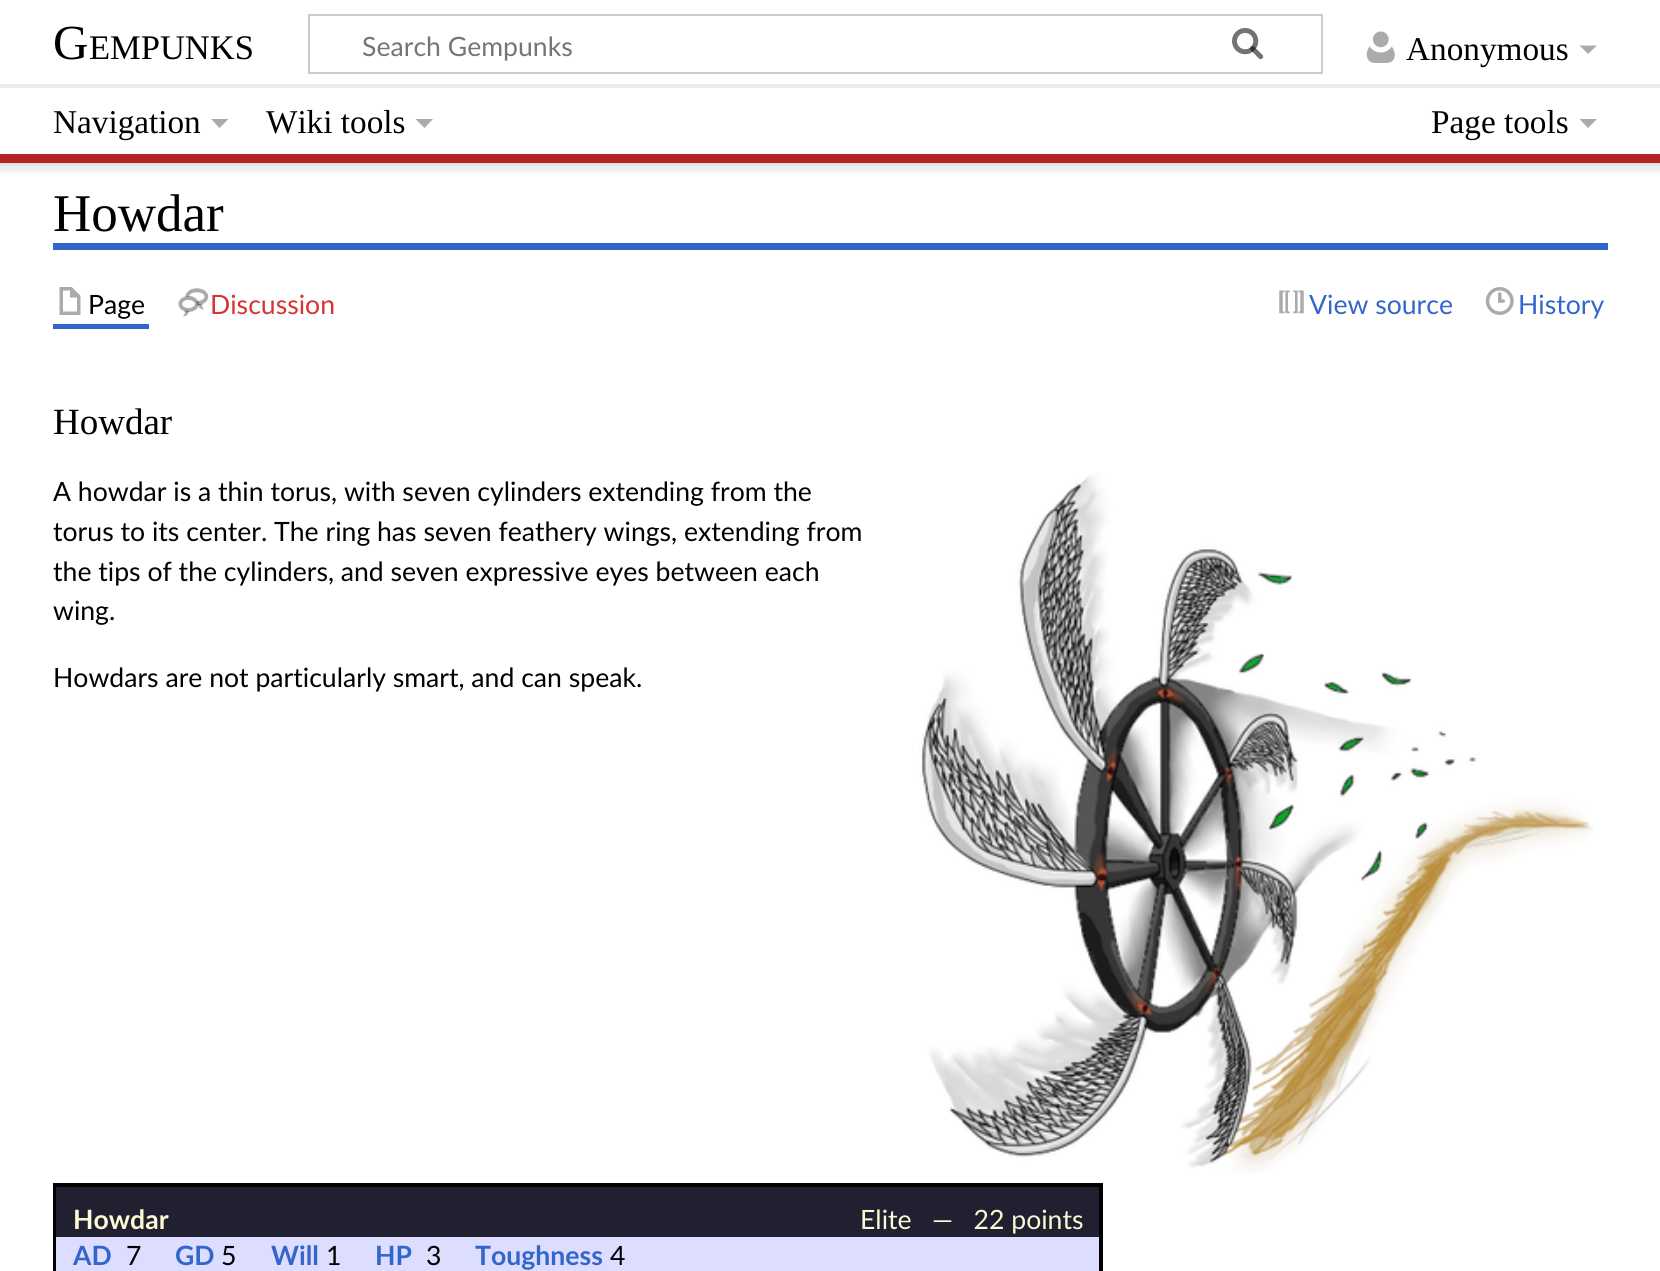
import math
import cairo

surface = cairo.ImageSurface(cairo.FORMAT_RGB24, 1660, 1271)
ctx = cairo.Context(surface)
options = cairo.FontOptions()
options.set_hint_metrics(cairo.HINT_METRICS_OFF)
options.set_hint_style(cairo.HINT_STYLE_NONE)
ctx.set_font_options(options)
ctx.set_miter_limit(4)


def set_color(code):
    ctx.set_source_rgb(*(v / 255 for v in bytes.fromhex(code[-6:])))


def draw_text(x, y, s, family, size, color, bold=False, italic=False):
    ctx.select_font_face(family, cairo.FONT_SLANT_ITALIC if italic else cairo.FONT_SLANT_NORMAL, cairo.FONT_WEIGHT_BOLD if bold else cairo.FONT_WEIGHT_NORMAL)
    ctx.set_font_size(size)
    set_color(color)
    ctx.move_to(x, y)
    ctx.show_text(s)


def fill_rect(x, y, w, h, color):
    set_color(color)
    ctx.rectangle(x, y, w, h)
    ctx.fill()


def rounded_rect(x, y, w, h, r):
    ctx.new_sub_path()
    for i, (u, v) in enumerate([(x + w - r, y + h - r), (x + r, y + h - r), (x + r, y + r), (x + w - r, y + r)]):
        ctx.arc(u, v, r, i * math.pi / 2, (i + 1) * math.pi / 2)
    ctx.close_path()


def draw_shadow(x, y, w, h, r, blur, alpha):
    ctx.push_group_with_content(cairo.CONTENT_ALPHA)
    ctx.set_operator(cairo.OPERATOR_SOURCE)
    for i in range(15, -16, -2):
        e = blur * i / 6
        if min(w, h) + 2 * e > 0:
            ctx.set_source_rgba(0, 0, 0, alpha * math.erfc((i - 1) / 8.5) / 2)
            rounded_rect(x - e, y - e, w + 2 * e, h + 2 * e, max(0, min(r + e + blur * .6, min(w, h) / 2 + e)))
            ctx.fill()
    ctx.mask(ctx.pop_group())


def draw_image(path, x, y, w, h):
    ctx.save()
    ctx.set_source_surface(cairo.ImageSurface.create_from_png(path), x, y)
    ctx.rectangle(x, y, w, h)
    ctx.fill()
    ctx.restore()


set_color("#ffffff")
ctx.paint()
set_color("#000000")
draw_shadow(0, 84, 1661, 79, 0, 2, 0.2)
draw_shadow(-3, 86, 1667, 86, 0, 2.5, 0.07)
fill_rect(0, 81, 1660, 3, "#ffffff")
draw_text(53, 59, "G", "Liberation Serif", 49, "#000000")
draw_text(89, 59, "EMPUNKS", "Liberation Serif", 34.5, "#000000")
ctx.rectangle(309, 15, 1013, 58)
set_color("#c8ccd1")
ctx.stroke()
draw_image("assets/img1.png", 1232, 28, 32, 32)
draw_text(362, 56, "Search Gempunks", "Lato", 26.6, "#757575")
draw_image("assets/img2.png", 1232, 28, 32, 32)
draw_image("assets/img3.png", 1366, 31, 29, 32)
draw_text(1406, 60, "Anonymous", "Liberation Serif", 33.25, "#000000")
set_color("#ababab")
ctx.new_path()
ctx.move_to(1597, 45.5)
ctx.line_to(1588, 54)
ctx.line_to(1579.5, 45.5)
ctx.close_path()
ctx.fill()
fill_rect(0, 88, 1660, 66, "#ffffff")
fill_rect(0, 84, 1660, 4, "#eaecf0")
fill_rect(0, 154, 1660, 9, "#b32424")
draw_text(53, 133, "Navigation", "Liberation Serif", 33.25, "#000000")
set_color("#ababab")
ctx.new_path()
ctx.move_to(228.5, 119)
ctx.line_to(219.5, 128)
ctx.line_to(211, 119)
ctx.close_path()
ctx.fill()
draw_text(266, 133, "Wiki tools", "Liberation Serif", 33.25, "#000000")
set_color("#ababab")
ctx.new_path()
ctx.move_to(433, 119)
ctx.line_to(424.5, 128)
ctx.line_to(415.5, 119)
ctx.close_path()
ctx.fill()
draw_text(1431, 133, "Page tools", "Liberation Serif", 33.25, "#000000")
set_color("#ababab")
ctx.new_path()
ctx.move_to(1597, 119)
ctx.line_to(1588, 128)
ctx.line_to(1579.5, 119)
ctx.close_path()
ctx.fill()
fill_rect(53, 243, 1555, 7, "#3366cc")
draw_text(53, 231, "Howdar", "Liberation Serif", 53, "#000000")
fill_rect(53, 324, 96, 5, "#3366cc")
draw_image("assets/img4.png", 59, 287, 22, 28)
draw_text(88, 314, "Page", "Lato", 26.6, "#000000")
draw_image("assets/img5.png", 178, 288, 31, 29)
draw_text(210, 314, "Discussion", "Lato", 26.6, "#d73333")
draw_image("assets/img6.png", 1279, 290, 25, 24)
draw_text(1309, 314, "View source", "Lato", 26.6, "#3366cc")
draw_image("assets/img7.png", 1485, 287, 29, 28)
draw_text(1518, 314, "History", "Lato", 26.6, "#3366cc")
draw_text(53, 434, "Howdar", "Liberation Serif", 37, "#000000")
draw_text(53, 501, "A howdar is a thin torus, with seven cylinders extending from the", "Lato", 26.6, "#000000")
draw_text(53, 541, "torus to its center. The ring has seven feathery wings, extending from", "Lato", 26.6, "#000000")
draw_text(53, 581, "the tips of the cylinders, and seven expressive eyes between each", "Lato", 26.6, "#000000")
draw_text(53, 620, "wing.", "Lato", 26.6, "#000000")
draw_image("assets/img8.png", 919, 473, 676, 701)
draw_text(53, 687, "Howdars are not particularly smart, and can speak.", "Lato", 26.6, "#000000")
ctx.rectangle(55, 1185, 1046, 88)
ctx.set_line_width(4)
ctx.stroke()
fill_rect(56, 1187, 1043, 50, "#202030")
draw_text(73, 1229, "Howdar", "Lato", 26.6, "#fdf9d3", bold=True)
draw_text(860, 1229, "Elite   —   22 points", "Lato", 26.6, "#fdf9d3")
fill_rect(56, 1237, 1043, 34, "#ddddff")
draw_text(73, 1265, "AD", "Lato", 26.6, "#3366cc", bold=True)
draw_text(126, 1265, "7", "Lato", 26.6, "#000000")
draw_text(175, 1265, "GD", "Lato", 26.6, "#3366cc", bold=True)
draw_text(221, 1265, "5", "Lato", 26.6, "#000000")
draw_text(271, 1265, "Will", "Lato", 26.6, "#3366cc", bold=True)
draw_text(326, 1265, "1", "Lato", 26.6, "#000000")
draw_text(375, 1265, "HP", "Lato", 26.6, "#3366cc", bold=True)
draw_text(426, 1265, "3", "Lato", 26.6, "#000000")
draw_text(475, 1265, "Toughness", "Lato", 26.6, "#3366cc", bold=True)
draw_text(610, 1265, "4", "Lato", 26.6, "#000000")
surface.write_to_png("output.png")
